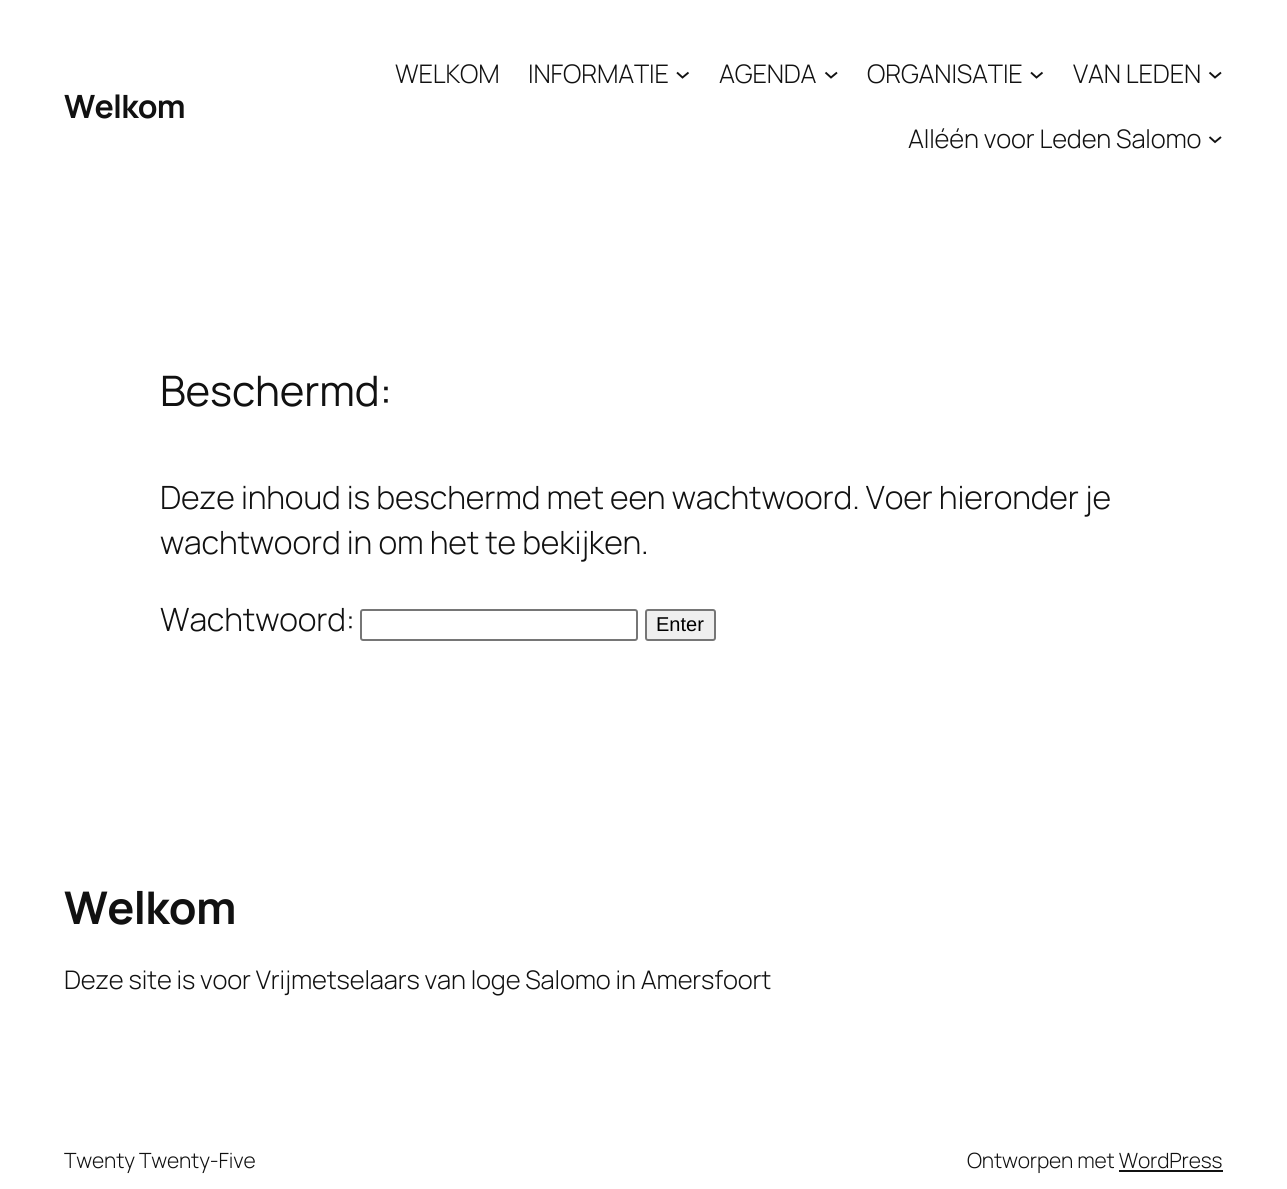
import math
import cairo

surface = cairo.ImageSurface(cairo.FORMAT_RGB24, 1287, 1189)
ctx = cairo.Context(surface)
options = cairo.FontOptions()
options.set_hint_metrics(cairo.HINT_METRICS_OFF)
options.set_hint_style(cairo.HINT_STYLE_NONE)
ctx.set_font_options(options)
ctx.set_miter_limit(4)


def set_color(code):
    ctx.set_source_rgb(*(v / 255 for v in bytes.fromhex(code[-6:])))


def draw_text(x, y, s, family, size, color, bold=False, italic=False):
    ctx.select_font_face(family, cairo.FONT_SLANT_ITALIC if italic else cairo.FONT_SLANT_NORMAL, cairo.FONT_WEIGHT_BOLD if bold else cairo.FONT_WEIGHT_NORMAL)
    ctx.set_font_size(size)
    set_color(color)
    ctx.move_to(x, y)
    ctx.show_text(s)


def draw_spaced(x, y, s, letter, word):
    ctx.move_to(x, y)
    for ch in s:
        ctx.show_text(ch)
        ctx.rel_move_to(letter + word * (ch == ' '), 0)


def fill_rect(x, y, w, h, color):
    set_color(color)
    ctx.rectangle(x, y, w, h)
    ctx.fill()


def rounded_rect(x, y, w, h, r):
    ctx.new_sub_path()
    for i, (u, v) in enumerate([(x + w - r, y + h - r), (x + r, y + h - r), (x + r, y + r), (x + w - r, y + r)]):
        ctx.arc(u, v, r, i * math.pi / 2, (i + 1) * math.pi / 2)
    ctx.close_path()


set_color("#ffffff")
ctx.paint()
ctx.select_font_face("Manrope", cairo.FONT_SLANT_NORMAL, cairo.FONT_WEIGHT_BOLD)
ctx.set_font_size(32.05)
set_color("#111111")
draw_spaced(64, 118, "Welkom", -0.75, 0)
ctx.select_font_face("Manrope Light")
ctx.set_font_size(25.6)
draw_spaced(395, 83, "WELKOM", -0.15, 0)
draw_spaced(528, 83, "INFORMATIE", -0.15, 0)
ctx.new_path()
ctx.move_to(677, 72.5)
ctx.line_to(682.5, 77.5)
ctx.line_to(688.5, 72.5)
ctx.set_line_width(1.9)
ctx.stroke()
draw_spaced(719, 83, "AGENDA", -0.15, 0)
ctx.new_path()
ctx.move_to(825.5, 72.5)
ctx.line_to(831, 77.5)
ctx.line_to(837, 72.5)
ctx.stroke()
draw_spaced(867, 83, "ORGANISATIE", -0.15, 0)
ctx.new_path()
ctx.move_to(1031, 72.5)
ctx.line_to(1036.5, 77.5)
ctx.line_to(1042.5, 72.5)
ctx.stroke()
draw_spaced(1073, 83, "VAN LEDEN", -0.15, 0)
ctx.new_path()
ctx.move_to(1209.5, 72.5)
ctx.line_to(1215, 77.5)
ctx.line_to(1221, 72.5)
ctx.stroke()
draw_spaced(908, 148, "Alléén voor Leden Salomo", -0.15, 0)
ctx.new_path()
ctx.move_to(1209.5, 137)
ctx.line_to(1215, 142)
ctx.line_to(1221, 137)
ctx.stroke()
ctx.select_font_face("Manrope")
ctx.set_font_size(42)
draw_spaced(160, 406, "Beschermd:", -0.15, 0)
ctx.select_font_face("Manrope Light")
ctx.set_font_size(32.05)
draw_spaced(160, 509, "Deze inhoud is beschermd met een wachtwoord. Voer hieronder je", -0.15, 0)
draw_spaced(160, 554, "wachtwoord in om het te bekijken.", -0.15, 0)
draw_spaced(160, 631, "Wachtwoord:", -0.15, 0)
rounded_rect(361, 610, 276, 30, 2)
set_color("#767676")
ctx.set_line_width(2)
ctx.stroke()
set_color("#efefef")
rounded_rect(646, 610, 69, 30, 2)
ctx.fill_preserve()
set_color("#767676")
ctx.stroke()
draw_text(656, 631, "Enter", "Liberation Sans", 20, "#000000")
ctx.select_font_face("Manrope", cairo.FONT_SLANT_NORMAL, cairo.FONT_WEIGHT_BOLD)
ctx.set_font_size(45)
set_color("#111111")
draw_spaced(64, 924, "Welkom", -0.75, 0)
ctx.select_font_face("Manrope Light")
ctx.set_font_size(25.6)
draw_spaced(64, 989, "Deze site is voor Vrijmetselaars van loge Salomo in Amersfoort", -0.15, 0)
ctx.set_font_size(21)
draw_spaced(64, 1168, "Twenty Twenty-Five", -0.15, 0)
draw_spaced(967, 1168, "Ontworpen met WordPress", -0.15, 0)
fill_rect(1119, 1170, 104, 2, "#111111")
surface.write_to_png("output.png")
